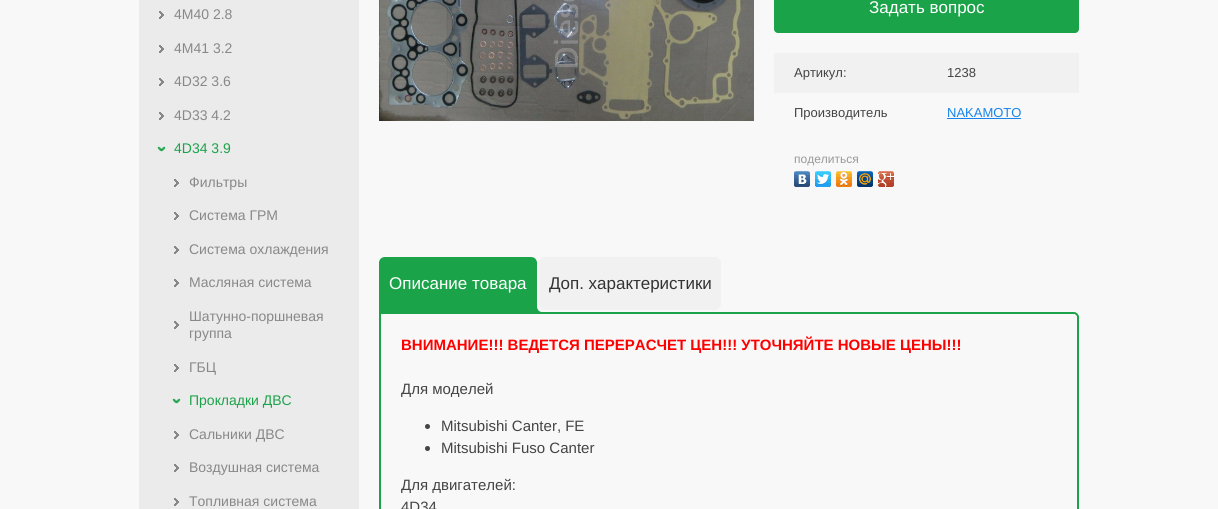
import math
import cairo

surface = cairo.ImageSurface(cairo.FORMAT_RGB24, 1218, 509)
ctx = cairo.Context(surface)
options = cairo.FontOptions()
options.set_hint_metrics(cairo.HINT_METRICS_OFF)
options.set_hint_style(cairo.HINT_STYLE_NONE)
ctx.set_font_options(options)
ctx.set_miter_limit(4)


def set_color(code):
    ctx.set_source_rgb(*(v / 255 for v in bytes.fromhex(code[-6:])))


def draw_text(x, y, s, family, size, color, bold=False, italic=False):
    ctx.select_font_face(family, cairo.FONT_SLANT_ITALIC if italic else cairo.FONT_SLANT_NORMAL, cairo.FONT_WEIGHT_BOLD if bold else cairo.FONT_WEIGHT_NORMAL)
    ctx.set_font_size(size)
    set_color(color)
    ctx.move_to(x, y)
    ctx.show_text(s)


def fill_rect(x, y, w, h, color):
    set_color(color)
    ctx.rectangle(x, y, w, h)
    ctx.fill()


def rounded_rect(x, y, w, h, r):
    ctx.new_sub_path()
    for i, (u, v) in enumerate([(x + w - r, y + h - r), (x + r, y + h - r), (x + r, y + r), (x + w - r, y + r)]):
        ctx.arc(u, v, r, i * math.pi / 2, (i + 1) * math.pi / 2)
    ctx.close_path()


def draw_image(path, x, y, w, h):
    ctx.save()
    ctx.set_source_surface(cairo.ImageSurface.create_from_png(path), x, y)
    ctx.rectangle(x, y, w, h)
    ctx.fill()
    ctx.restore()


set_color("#f8f8f8")
ctx.paint()
fill_rect(139, 0, 220, 509, "#ebebeb")
draw_image("assets/img1.png", 159, 11, 5, 8)
draw_text(174, 19, "4M40 2.8", "Liberation Sans", 14, "#888888")
draw_image("assets/img1.png", 159, 45, 5, 8)
draw_text(174, 53, "4M41 3.2", "Liberation Sans", 14, "#888888")
draw_image("assets/img1.png", 159, 78, 5, 8)
draw_text(174, 86, "4D32 3.6", "Liberation Sans", 14, "#888888")
draw_image("assets/img1.png", 159, 112, 5, 8)
draw_text(174, 120, "4D33 4.2", "Liberation Sans", 14, "#888888")
draw_image("assets/img2.png", 157, 146, 9, 6)
draw_text(174, 153, "4D34 3.9", "Liberation Sans", 14, "#1ba34a")
draw_image("assets/img1.png", 174, 179, 5, 8)
draw_text(189, 187, "Фильтры", "Liberation Sans", 14, "#888888")
draw_image("assets/img1.png", 174, 212, 5, 8)
draw_text(189, 220, "Система ГРМ", "Liberation Sans", 14, "#888888")
draw_image("assets/img1.png", 174, 246, 5, 8)
draw_text(189, 254, "Система охлаждения", "Liberation Sans", 14, "#888888")
draw_image("assets/img1.png", 174, 279, 5, 8)
draw_text(189, 287, "Масляная система", "Liberation Sans", 14, "#888888")
draw_text(189, 321, "Шатунно-поршневая", "Liberation Sans", 14, "#888888")
draw_image("assets/img1.png", 174, 321, 5, 8)
draw_text(189, 338, "группа", "Liberation Sans", 14, "#888888")
draw_image("assets/img1.png", 174, 364, 5, 8)
draw_text(189, 372, "ГБЦ", "Liberation Sans", 14, "#888888")
draw_image("assets/img2.png", 172, 398, 9, 6)
draw_text(189, 405, "Прокладки ДВС", "Liberation Sans", 14, "#1ba34a")
draw_image("assets/img1.png", 174, 431, 5, 8)
draw_text(189, 439, "Сальники ДВС", "Liberation Sans", 14, "#888888")
draw_image("assets/img1.png", 174, 464, 5, 8)
draw_text(189, 472, "Воздушная система", "Liberation Sans", 14, "#888888")
draw_image("assets/img1.png", 174, 498, 5, 8)
draw_text(189, 506, "Топливная система", "Liberation Sans", 14, "#888888")
draw_image("assets/img3.png", 379, 0, 375, 121)
set_color("#1ba34a")
rounded_rect(774, -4, 305, 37, 4)
ctx.fill()
draw_text(869, 13, "Задать вопрос", "Liberation Sans", 17, "#ffffff")
fill_rect(774, 53, 305, 40, "#f1f1f1")
draw_text(794, 77, "Артикул:", "Liberation Sans", 13, "#444444")
draw_text(947, 77, "1238", "Liberation Sans", 13, "#444444")
draw_text(794, 117, "Производитель", "Liberation Sans", 13, "#444444")
draw_text(947, 117, "NAKAMOTO", "Liberation Sans", 13, "#1684eb")
fill_rect(947, 118, 74, 1, "#1684eb")
draw_text(794, 163, "поделиться", "Liberation Sans", 12, "#999999")
draw_image("assets/img4.png", 794, 171, 16, 16)
draw_image("assets/img5.png", 815, 171, 16, 16)
draw_image("assets/img6.png", 836, 171, 16, 16)
draw_image("assets/img7.png", 857, 171, 16, 16)
draw_image("assets/img8.png", 878, 171, 16, 16)
set_color("#1ba34a")
ctx.new_path()
ctx.move_to(385, 257)
ctx.line_to(531, 257)
ctx.curve_to(534.5, 257, 537, 259.5, 537, 263)
ctx.line_to(537, 312)
ctx.line_to(379, 312)
ctx.line_to(379, 263)
ctx.curve_to(379, 259.5, 381.5, 257, 385, 257)
ctx.close_path()
ctx.fill()
draw_text(389, 289, "Описание товара", "Liberation Sans", 17, "#ffffff")
draw_image("assets/img9.png", 537, 307, 5, 5)
set_color("#f1f1f1")
rounded_rect(539, 257, 182, 53, 6)
ctx.fill()
draw_text(549, 289, "Доп. характеристики", "Liberation Sans", 17, "#333333")
ctx.new_path()
ctx.move_to(380, 313)
ctx.line_to(1074, 313)
ctx.curve_to(1076, 313, 1078, 315, 1078, 317)
ctx.line_to(1078, 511)
ctx.curve_to(1078, 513, 1076, 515, 1074, 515)
ctx.line_to(384, 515)
ctx.curve_to(382, 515, 380, 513, 380, 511)
ctx.close_path()
set_color("#1ba34a")
ctx.stroke()
draw_text(401, 350, "ВНИМАНИЕ!!! ВЕДЕТСЯ ПЕРЕРАСЧЕТ ЦЕН!!! УТОЧНЯЙТЕ НОВЫЕ ЦЕНЫ!!!", "Liberation Sans", 15, "#ff0000", bold=True)
draw_text(401, 394, "Для моделей", "Liberation Sans", 15, "#444444")
ctx.new_path()
ctx.arc(427.5, 426.5, 2.5, 0, 2 * math.pi)
ctx.fill()
draw_text(441, 431, "Mitsubishi Canter, FE", "Liberation Sans", 15, "#444444")
ctx.new_path()
ctx.arc(427.5, 448.5, 2.5, 0, 2 * math.pi)
ctx.fill()
draw_text(441, 453, "Mitsubishi Fuso Canter", "Liberation Sans", 15, "#444444")
draw_text(401, 490, "Для двигателей:", "Liberation Sans", 15, "#444444")
draw_text(401, 512, "4D34", "Liberation Sans", 15, "#444444")
surface.write_to_png("output.png")
